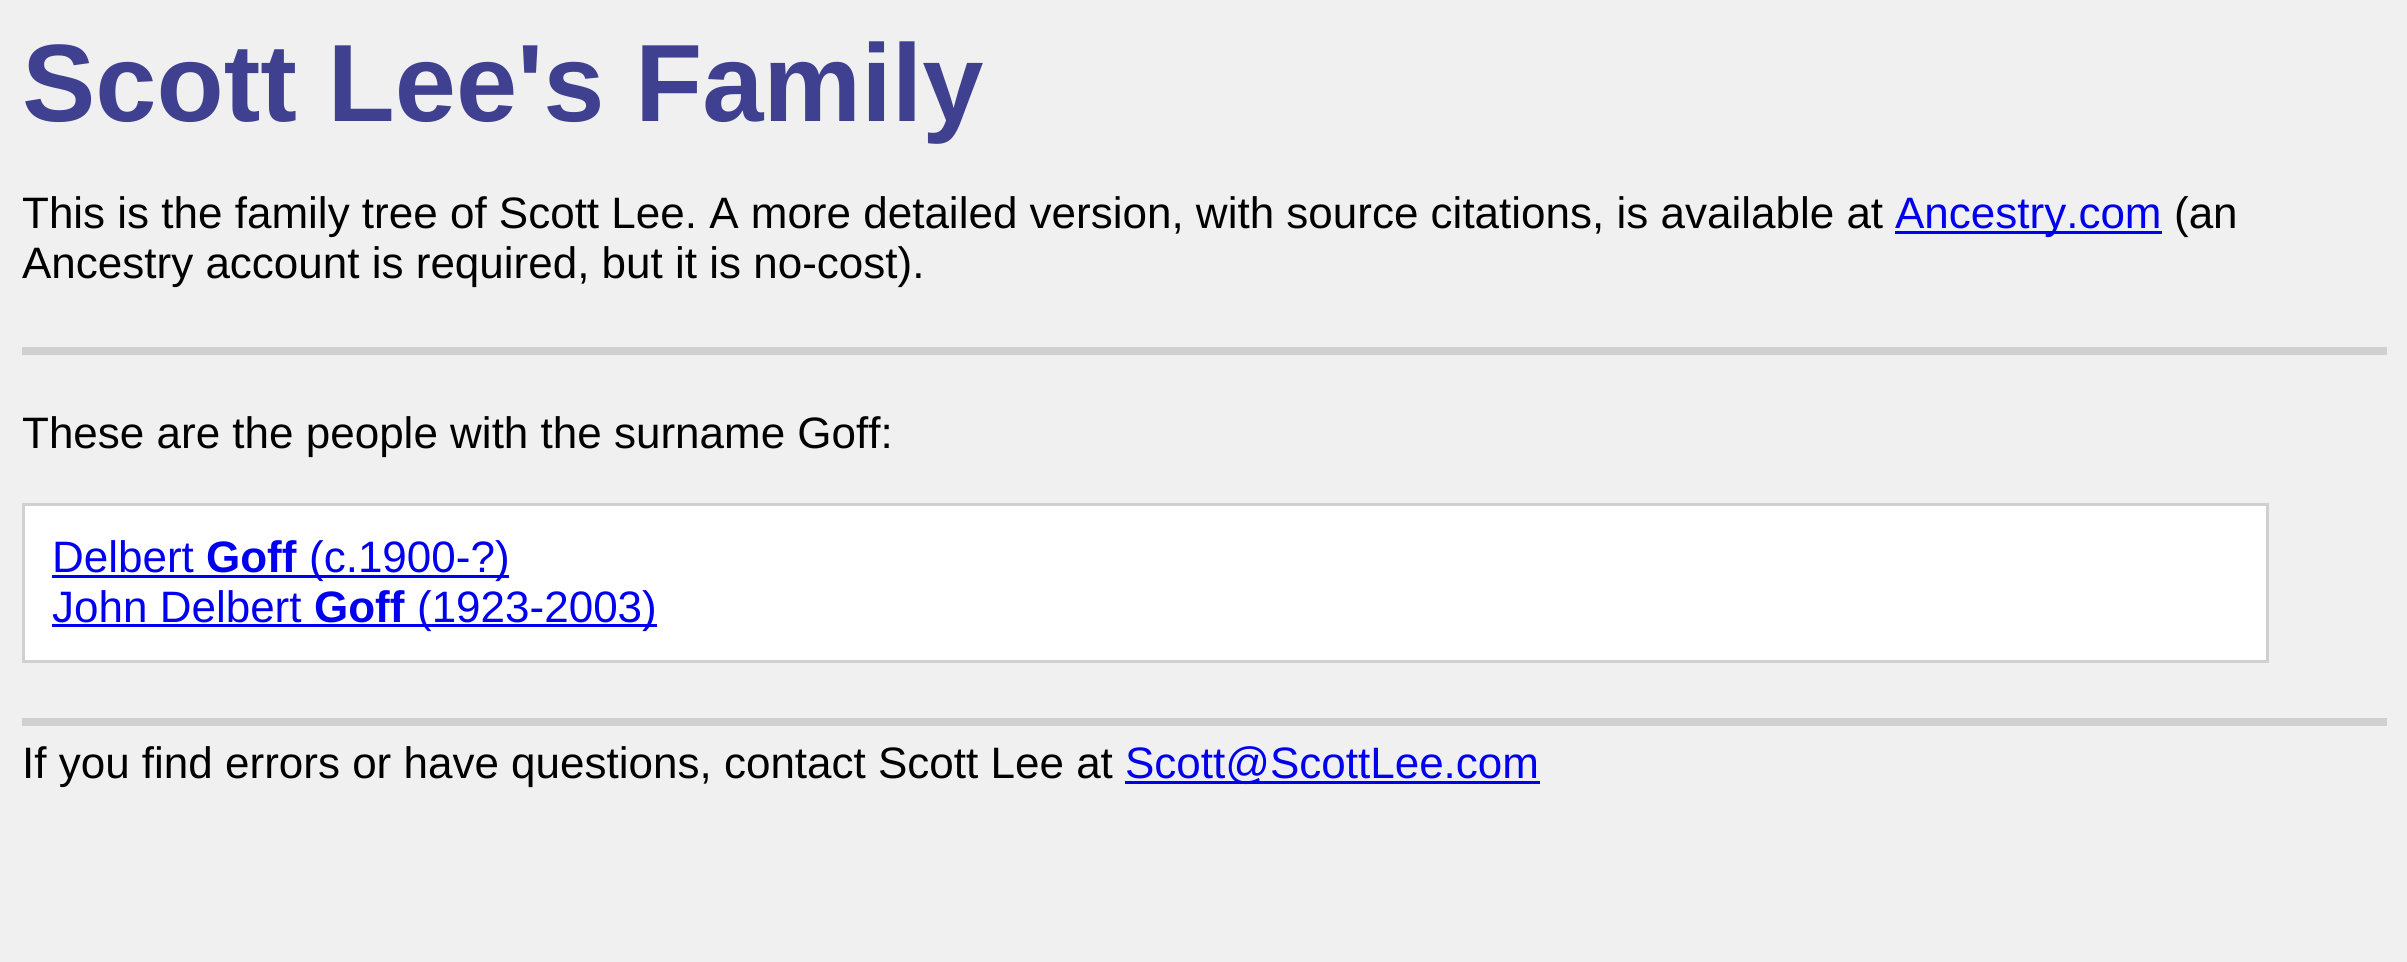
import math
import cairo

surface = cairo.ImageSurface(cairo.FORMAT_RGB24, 2407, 962)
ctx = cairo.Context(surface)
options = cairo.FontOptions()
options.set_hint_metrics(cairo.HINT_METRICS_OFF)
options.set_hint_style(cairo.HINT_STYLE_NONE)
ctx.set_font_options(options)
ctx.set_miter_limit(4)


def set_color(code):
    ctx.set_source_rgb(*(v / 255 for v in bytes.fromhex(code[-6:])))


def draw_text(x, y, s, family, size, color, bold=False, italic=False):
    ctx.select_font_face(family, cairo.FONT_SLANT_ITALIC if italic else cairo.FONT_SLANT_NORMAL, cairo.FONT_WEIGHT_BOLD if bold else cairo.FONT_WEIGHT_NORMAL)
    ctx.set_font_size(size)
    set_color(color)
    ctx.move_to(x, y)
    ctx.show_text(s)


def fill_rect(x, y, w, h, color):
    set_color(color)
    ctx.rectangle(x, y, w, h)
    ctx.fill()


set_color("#f0f0f0")
ctx.paint()
fill_rect(22, 347, 2365, 8, "#d0d0d0")
draw_text(22, 121, "Scott Lee's Family", "Liberation Sans", 110, "#404090", bold=True)
draw_text(22, 228, "This is the family tree of Scott Lee. A more detailed version, with source citations, is available at", "Liberation Sans", 44, "#000000")
fill_rect(1895, 231, 267, 3, "#0000ee")
draw_text(1895, 228, "Ancestry.com", "Liberation Sans", 44, "#0000ee")
draw_text(2174, 228, "(an", "Liberation Sans", 44, "#000000")
draw_text(22, 278, "Ancestry account is required, but it is no-cost).", "Liberation Sans", 44, "#000000")
draw_text(22, 448, "These are the people with the surname Goff:", "Liberation Sans", 44, "#000000")
set_color("#ffffff")
ctx.rectangle(23.5, 504.5, 2244, 157)
ctx.fill_preserve()
set_color("#d0d0d0")
ctx.set_line_width(3)
ctx.stroke()
draw_text(52, 572, "Delbert", "Liberation Sans", 44, "#0000ee")
draw_text(206, 572, "Goff", "Liberation Sans", 44, "#0000ee", bold=True)
fill_rect(52, 575, 457, 3, "#0000ee")
draw_text(309, 572, "(c.1900-?)", "Liberation Sans", 44, "#0000ee")
draw_text(52, 622, "John Delbert", "Liberation Sans", 44, "#0000ee")
draw_text(314, 622, "Goff", "Liberation Sans", 44, "#0000ee", bold=True)
fill_rect(52, 624, 605, 3, "#0000ee")
draw_text(417, 622, "(1923-2003)", "Liberation Sans", 44, "#0000ee")
fill_rect(22, 718, 2365, 8, "#d0d0d0")
draw_text(22, 778, "If you find errors or have questions, contact Scott Lee at", "Liberation Sans", 44, "#000000")
fill_rect(1125, 781, 415, 3, "#0000ee")
draw_text(1125, 778, "Scott@ScottLee.com", "Liberation Sans", 44, "#0000ee")
surface.write_to_png("output.png")
